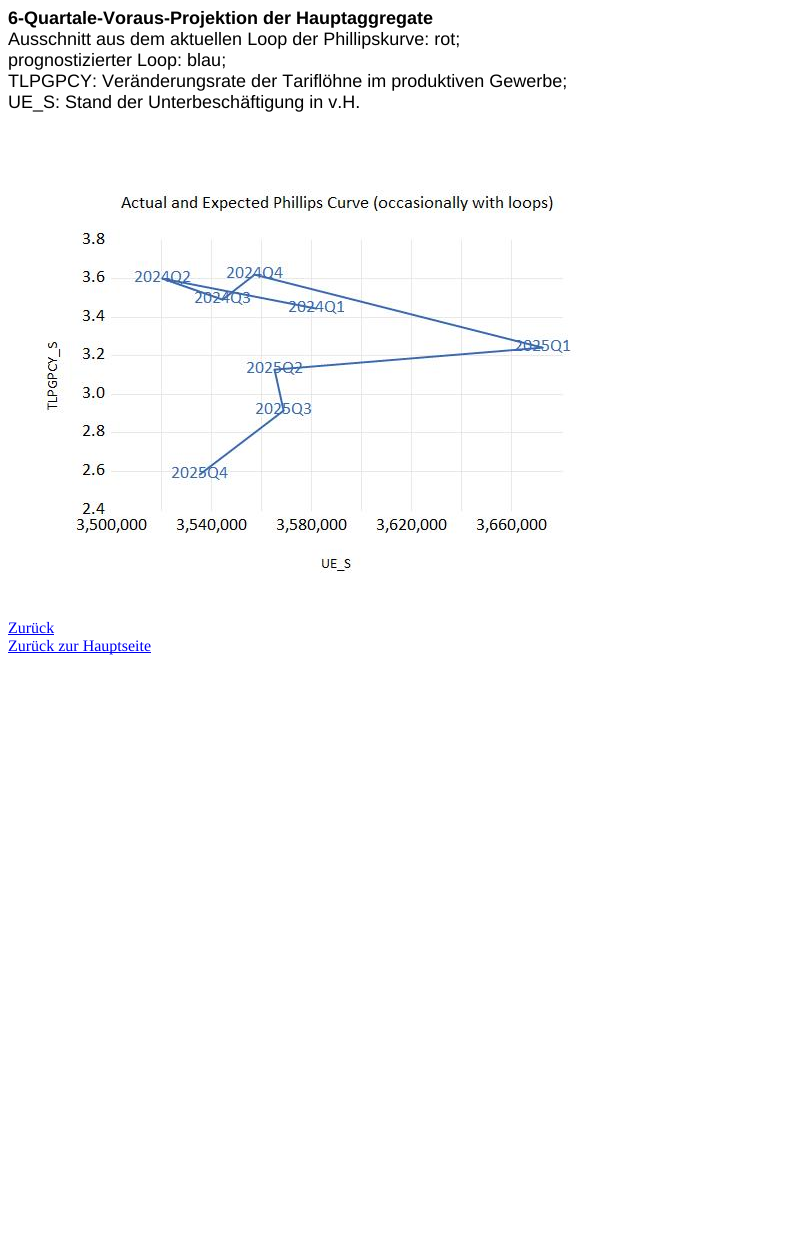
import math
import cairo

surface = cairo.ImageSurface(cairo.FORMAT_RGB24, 790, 1243)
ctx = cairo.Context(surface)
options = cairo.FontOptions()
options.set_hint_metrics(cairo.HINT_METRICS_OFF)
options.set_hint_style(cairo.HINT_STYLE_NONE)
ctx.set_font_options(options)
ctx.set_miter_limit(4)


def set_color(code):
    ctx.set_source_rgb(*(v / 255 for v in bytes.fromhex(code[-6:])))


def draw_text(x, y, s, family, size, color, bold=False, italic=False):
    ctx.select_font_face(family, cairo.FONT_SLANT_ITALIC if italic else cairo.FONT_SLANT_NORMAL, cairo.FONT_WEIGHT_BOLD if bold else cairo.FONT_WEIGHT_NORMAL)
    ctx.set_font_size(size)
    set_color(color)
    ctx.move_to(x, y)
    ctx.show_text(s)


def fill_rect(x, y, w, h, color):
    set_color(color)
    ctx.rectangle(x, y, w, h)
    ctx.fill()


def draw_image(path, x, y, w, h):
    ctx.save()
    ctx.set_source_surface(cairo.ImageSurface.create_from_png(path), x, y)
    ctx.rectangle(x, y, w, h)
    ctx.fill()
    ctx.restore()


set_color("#ffffff")
ctx.paint()
draw_text(8, 24, "6-Quartale-Voraus-Projektion der Hauptaggregate", "Liberation Sans", 18, "#000000", bold=True)
draw_text(8, 45, "Ausschnitt aus dem aktuellen Loop der Phillipskurve: rot;", "Liberation Sans", 18, "#000000")
draw_text(8, 66, "prognostizierter Loop: blau;", "Liberation Sans", 18, "#000000")
draw_text(8, 87, "TLPGPCY: Veränderungsrate der Tariflöhne im produktiven Gewerbe;", "Liberation Sans", 18, "#000000")
draw_text(8, 108, "UE_S: Stand der Unterbeschäftigung in v.H.", "Liberation Sans", 18, "#000000")
draw_image("assets/img1.png", 40, 189, 536, 384)
draw_text(8, 633, "Zurück", "Liberation Serif", 16, "#0000ee")
fill_rect(8, 634, 46, 1, "#0000ee")
fill_rect(8, 652, 143, 1, "#0000ee")
draw_text(8, 651, "Zurück zur Hauptseite", "Liberation Serif", 16, "#0000ee")
surface.write_to_png("output.png")
